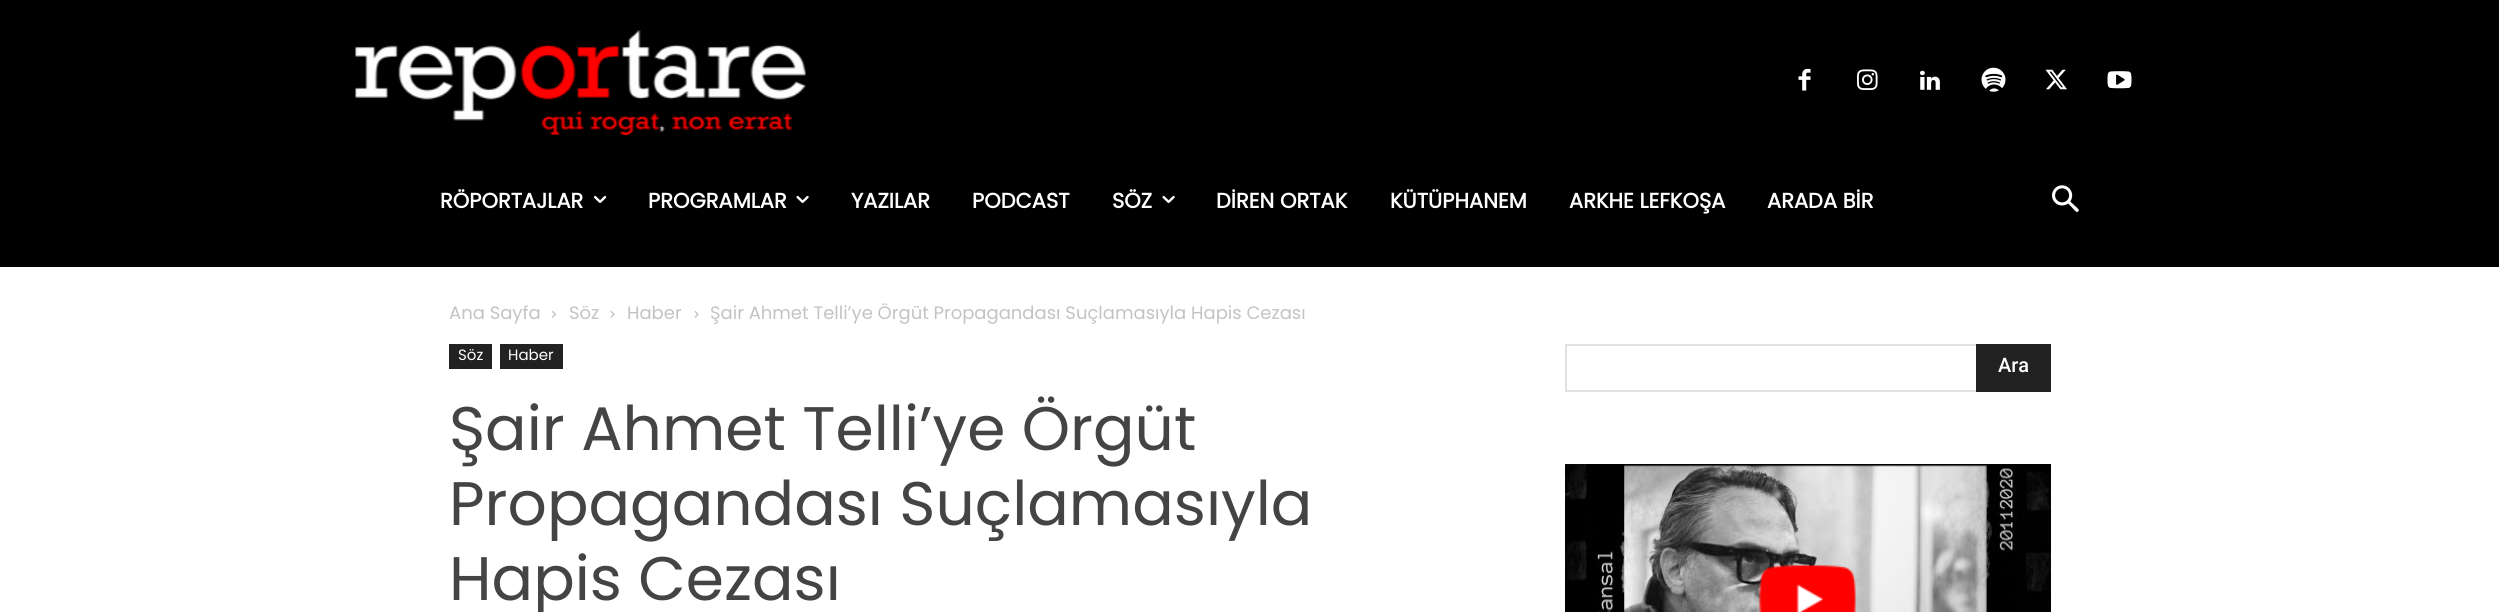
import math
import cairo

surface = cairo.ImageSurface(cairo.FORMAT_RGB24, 2499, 612)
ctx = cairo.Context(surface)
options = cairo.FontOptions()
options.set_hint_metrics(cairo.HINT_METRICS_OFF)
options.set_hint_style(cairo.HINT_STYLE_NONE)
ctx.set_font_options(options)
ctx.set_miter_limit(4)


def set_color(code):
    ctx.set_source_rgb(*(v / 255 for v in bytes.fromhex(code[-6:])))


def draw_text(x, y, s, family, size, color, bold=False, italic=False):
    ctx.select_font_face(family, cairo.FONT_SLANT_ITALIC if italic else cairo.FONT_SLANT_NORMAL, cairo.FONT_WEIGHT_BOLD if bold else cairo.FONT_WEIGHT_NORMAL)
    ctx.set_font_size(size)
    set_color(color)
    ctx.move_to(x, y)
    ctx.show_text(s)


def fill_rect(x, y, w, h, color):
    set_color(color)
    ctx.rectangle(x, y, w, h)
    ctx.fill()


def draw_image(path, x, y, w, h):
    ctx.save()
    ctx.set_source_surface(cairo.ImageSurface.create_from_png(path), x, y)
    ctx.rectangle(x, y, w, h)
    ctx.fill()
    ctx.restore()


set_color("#ffffff")
ctx.paint()
fill_rect(0, 0, 2499, 267, "#000000")
draw_image("assets/img1.png", 355, 30, 451, 105)
draw_image("assets/img2.png", 1798, 68, 13, 23)
draw_image("assets/img3.png", 1857, 69, 21, 21)
draw_image("assets/img4.png", 1920, 70, 20, 20)
draw_image("assets/img5.png", 1981, 67, 25, 25)
draw_image("assets/img6.png", 2045, 69, 22, 21)
draw_image("assets/img7.png", 2107, 71, 25, 18)
draw_text(440, 208, "RÖPORTAJLAR", "Poppins", 21, "#ffffff", bold=True)
draw_image("assets/img8.png", 594, 195, 13, 8)
draw_text(648, 208, "PROGRAMLAR", "Poppins", 21, "#ffffff", bold=True)
draw_image("assets/img9.png", 796, 195, 13, 8)
draw_text(851, 208, "YAZILAR", "Poppins", 21, "#ffffff", bold=True)
draw_text(972, 208, "PODCAST", "Poppins", 21, "#ffffff", bold=True)
draw_text(1112, 208, "SÖZ", "Poppins", 21, "#ffffff", bold=True)
draw_image("assets/img9.png", 1162, 195, 13, 8)
draw_text(1216, 208, "DİREN ORTAK", "Poppins", 21, "#ffffff", bold=True)
draw_text(1390, 208, "KÜTÜPHANEM", "Poppins", 21, "#ffffff", bold=True)
draw_text(1569, 208, "ARKHE LEFKOŞA", "Poppins", 21, "#ffffff", bold=True)
draw_text(1767, 208, "ARADA BİR", "Poppins", 21, "#ffffff", bold=True)
draw_image("assets/img10.png", 2052, 185, 27, 27)
draw_text(449, 319, "Ana Sayfa", "Poppins", 18, "#c3c3c3")
draw_image("assets/img11.png", 552, 311, 4, 7)
draw_text(569, 319, "Söz", "Poppins", 18, "#c3c3c3")
draw_image("assets/img12.png", 610, 311, 5, 7)
draw_text(627, 319, "Haber", "Poppins", 18, "#c3c3c3")
draw_image("assets/img12.png", 694, 311, 5, 7)
draw_text(710, 319, "Şair Ahmet Telli’ye Örgüt Propagandası Suçlamasıyla Hapis Cezası", "Poppins", 18, "#c3c3c3")
fill_rect(449, 344, 43, 25, "#222222")
draw_text(458, 360, "Söz", "Poppins", 15, "#ffffff")
fill_rect(500, 344, 63, 25, "#222222")
draw_text(508, 360, "Haber", "Poppins", 15, "#ffffff")
draw_text(449, 450, "Şair Ahmet Telli’ye Örgüt", "Poppins", 61.5, "#444444")
draw_text(449, 525, "Propagandası Suçlamasıyla", "Poppins", 61.5, "#444444")
draw_text(449, 600, "Hapis Cezası", "Poppins", 61.5, "#444444")
fill_rect(1565, 344, 411, 2, "#e1e1e1")
fill_rect(1565, 390, 411, 2, "#e1e1e1")
fill_rect(1565, 344, 2, 48, "#e1e1e1")
fill_rect(1976, 344, 75, 48, "#222222")
draw_text(1998, 372, "Ara", "Roboto Medium", 20, "#ffffff")
draw_image("assets/img13.png", 1565, 464, 486, 148)
draw_image("assets/img14.png", 1759, 565, 97, 47)
surface.write_to_png("output.png")
